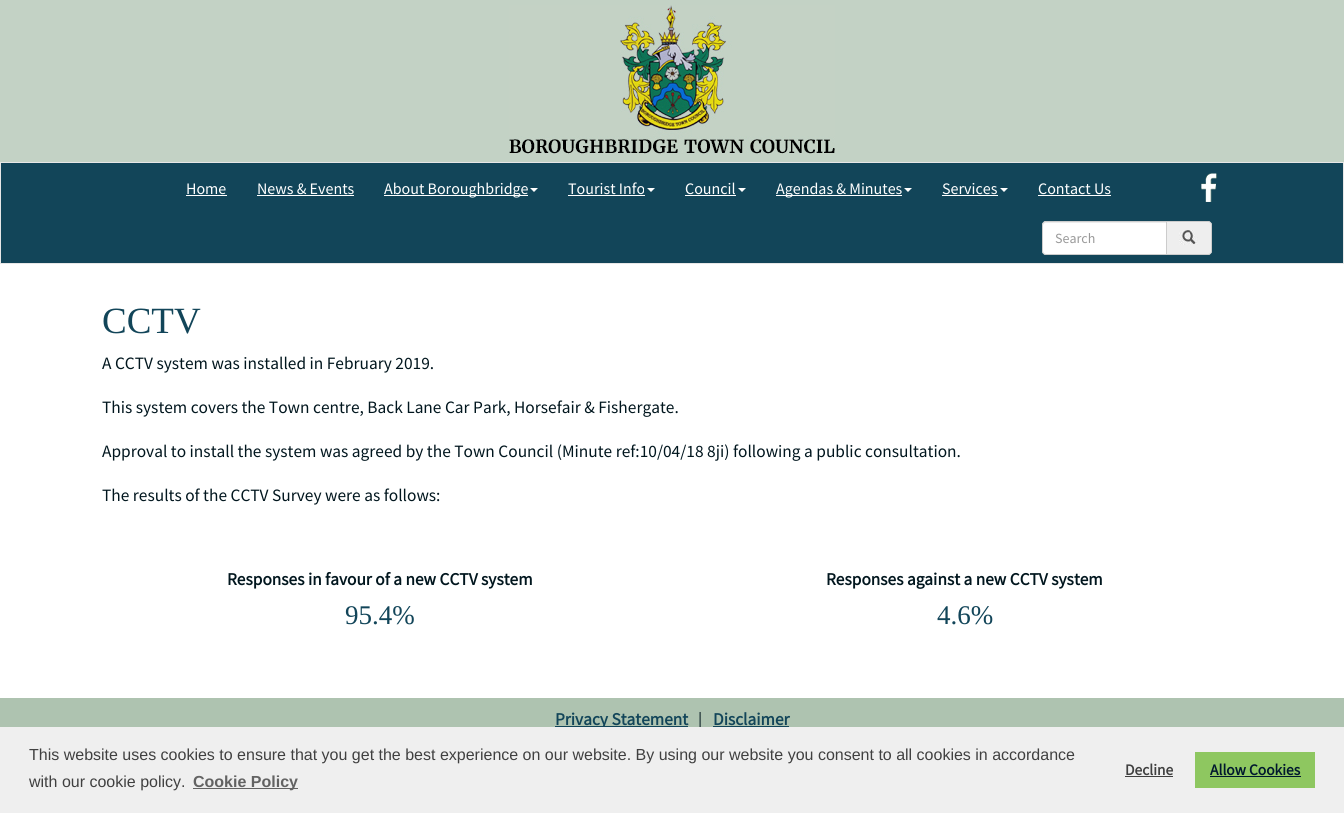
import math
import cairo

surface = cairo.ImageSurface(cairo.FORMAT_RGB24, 1344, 813)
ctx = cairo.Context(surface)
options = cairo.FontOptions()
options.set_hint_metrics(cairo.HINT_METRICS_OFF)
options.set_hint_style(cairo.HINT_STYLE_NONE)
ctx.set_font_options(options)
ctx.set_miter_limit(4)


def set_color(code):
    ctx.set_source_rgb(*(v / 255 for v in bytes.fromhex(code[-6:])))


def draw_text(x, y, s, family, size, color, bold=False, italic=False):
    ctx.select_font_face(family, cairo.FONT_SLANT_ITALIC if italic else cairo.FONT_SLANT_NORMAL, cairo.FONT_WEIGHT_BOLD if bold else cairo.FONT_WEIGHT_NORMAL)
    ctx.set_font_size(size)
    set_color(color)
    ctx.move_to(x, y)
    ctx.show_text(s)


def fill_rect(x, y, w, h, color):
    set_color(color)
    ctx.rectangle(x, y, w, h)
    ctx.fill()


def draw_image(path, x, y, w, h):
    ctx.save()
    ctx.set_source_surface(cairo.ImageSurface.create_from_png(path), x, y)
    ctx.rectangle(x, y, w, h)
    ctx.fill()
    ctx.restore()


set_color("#ffffff")
ctx.paint()
fill_rect(0, 0, 1344, 162, "#c3d2c5")
draw_image("assets/img1.png", 509, 5, 326, 149)
set_color("#124559")
ctx.rectangle(0.5, 162.5, 1343, 101)
ctx.fill_preserve()
set_color("#e7e7e7")
ctx.set_line_width(1)
ctx.stroke()
draw_text(186, 194, "Home", "Source Sans Pro", 16, "#ffffff")
fill_rect(186, 195, 41, 1, "#ffffff")
draw_text(257, 194, "News & Events", "Source Sans Pro", 16, "#ffffff")
fill_rect(257, 195, 97, 1, "#ffffff")
fill_rect(384, 195, 144, 1, "#ffffff")
draw_text(384, 194, "About Boroughbridge", "Source Sans Pro", 16, "#ffffff")
ctx.new_path()
ctx.move_to(530, 188)
ctx.line_to(538, 188)
ctx.line_to(534, 192)
ctx.close_path()
ctx.fill()
draw_text(568, 194, "Tourist Info", "Source Sans Pro", 16, "#ffffff")
fill_rect(568, 195, 77, 1, "#ffffff")
ctx.new_path()
ctx.move_to(647, 188)
ctx.line_to(655, 188)
ctx.line_to(651, 192)
ctx.close_path()
ctx.fill()
draw_text(685, 194, "Council", "Source Sans Pro", 16, "#ffffff")
fill_rect(685, 195, 51, 1, "#ffffff")
ctx.new_path()
ctx.move_to(738, 188)
ctx.line_to(746, 188)
ctx.line_to(742, 192)
ctx.close_path()
ctx.fill()
fill_rect(776, 195, 126, 1, "#ffffff")
draw_text(776, 194, "Agendas & Minutes", "Source Sans Pro", 16, "#ffffff")
ctx.new_path()
ctx.move_to(904, 188)
ctx.line_to(912, 188)
ctx.line_to(908, 192)
ctx.close_path()
ctx.fill()
draw_text(942, 194, "Services", "Source Sans Pro", 16, "#ffffff")
fill_rect(942, 195, 56, 1, "#ffffff")
ctx.new_path()
ctx.move_to(1000, 188)
ctx.line_to(1008, 188)
ctx.line_to(1004, 192)
ctx.close_path()
ctx.fill()
draw_text(1038, 194, "Contact Us", "Source Sans Pro", 16, "#ffffff")
fill_rect(1038, 195, 73, 1, "#ffffff")
draw_image("assets/img2.png", 1201, 173, 16, 29)
ctx.new_path()
ctx.move_to(1046, 221)
ctx.line_to(1167, 221)
ctx.line_to(1167, 255)
ctx.line_to(1046, 255)
ctx.curve_to(1044, 255, 1042, 253, 1042, 251)
ctx.line_to(1042, 225)
ctx.curve_to(1042, 223, 1044, 221, 1046, 221)
ctx.close_path()
ctx.fill()
set_color("#ececec")
ctx.new_path()
ctx.move_to(1046, 223)
ctx.line_to(1166, 223)
ctx.line_to(1166, 222)
ctx.line_to(1046, 222)
ctx.curve_to(1044, 222, 1043, 223, 1043, 225)
ctx.line_to(1043, 226)
ctx.curve_to(1043, 224, 1044, 223, 1046, 223)
ctx.close_path()
ctx.fill()
ctx.new_path()
ctx.move_to(1046, 221.5)
ctx.line_to(1166.5, 221.5)
ctx.line_to(1166.5, 254.5)
ctx.line_to(1046, 254.5)
ctx.curve_to(1044, 254.5, 1042.5, 253, 1042.5, 251)
ctx.line_to(1042.5, 225)
ctx.curve_to(1042.5, 223, 1044, 221.5, 1046, 221.5)
ctx.close_path()
set_color("#cccccc")
ctx.stroke()
draw_text(1055, 243, "Search", "Source Sans Pro", 14, "#999999")
set_color("#eeeeee")
ctx.new_path()
ctx.move_to(1167, 221)
ctx.line_to(1208, 221)
ctx.curve_to(1210, 221, 1212, 223, 1212, 225)
ctx.line_to(1212, 251)
ctx.curve_to(1212, 253, 1210, 255, 1208, 255)
ctx.line_to(1167, 255)
ctx.close_path()
ctx.fill()
set_color("#cccccc")
ctx.set_fill_rule(cairo.FILL_RULE_EVEN_ODD)
ctx.new_path()
ctx.move_to(1167, 221)
ctx.line_to(1208, 221)
ctx.curve_to(1210, 221, 1212, 223, 1212, 225)
ctx.line_to(1212, 251)
ctx.curve_to(1212, 253, 1210, 255, 1208, 255)
ctx.line_to(1167, 255)
ctx.close_path()
ctx.move_to(1167, 222)
ctx.line_to(1208, 222)
ctx.curve_to(1210, 222, 1211, 223, 1211, 225)
ctx.line_to(1211, 251)
ctx.curve_to(1211, 253, 1210, 254, 1208, 254)
ctx.line_to(1167, 254)
ctx.close_path()
ctx.fill()
draw_image("assets/img3.png", 1179, 230, 19, 15)
draw_text(102, 333, "CCTV", "Liberation Serif", 37, "#124559")
draw_text(102, 369, "A CCTV system was installed in February 2019.", "Source Sans Pro", 17.35, "#01161e")
draw_text(102, 413, "This system covers the Town centre, Back Lane Car Park, Horsefair & Fishergate.", "Source Sans Pro", 17.35, "#01161e")
draw_text(102, 457, "Approval to install the system was agreed by the Town Council (Minute ref:10/04/18 8ji) following a public consultation.", "Source Sans Pro", 17.35, "#01161e")
draw_text(102, 501, "The results of the CCTV Survey were as follows:", "Source Sans Pro", 17.35, "#01161e")
draw_text(227, 585, "Responses in favour of a new CCTV system", "Source Sans Pro", 17.35, "#01161e", bold=True)
draw_text(345, 624, "95.4%", "Liberation Serif", 27, "#124559")
draw_text(826, 585, "Responses against a new CCTV system", "Source Sans Pro", 17.35, "#01161e", bold=True)
draw_text(937, 624, "4.6%", "Liberation Serif", 27, "#124559")
fill_rect(0, 698, 1344, 29, "#aec3b0")
fill_rect(555, 726, 133, 1, "#124559")
draw_text(555, 725, "Privacy Statement", "Source Sans Pro", 17.35, "#124559", bold=True)
draw_text(698, 725, "|", "Source Sans Pro", 17.35, "#01161e")
draw_text(713, 725, "Disclaimer", "Source Sans Pro", 17.35, "#124559", bold=True)
fill_rect(713, 726, 76, 1, "#124559")
fill_rect(0, 727, 1344, 86, "#efefef")
draw_text(29, 760, "This website uses cookies to ensure that you get the best experience on our website. By using our website you consent to all cookies in accordance", "Liberation Sans", 16, "#404040")
draw_text(29, 787, "with our cookie policy.", "Liberation Sans", 16, "#404040")
fill_rect(193, 788, 105, 1, "#636363")
draw_text(193, 787, "Cookie Policy", "Liberation Sans", 16, "#636363", bold=True)
draw_text(1125, 775, "Decline", "Source Sans Pro", 15.5, "#404040", bold=True)
fill_rect(1125, 776, 48, 1, "#404040")
fill_rect(1195, 752, 120, 36, "#8ec760")
draw_text(1210, 775, "Allow Cookies", "Source Sans Pro", 15.5, "#00182e", bold=True)
fill_rect(1210, 776, 91, 1, "#00182e")
surface.write_to_png("output.png")
